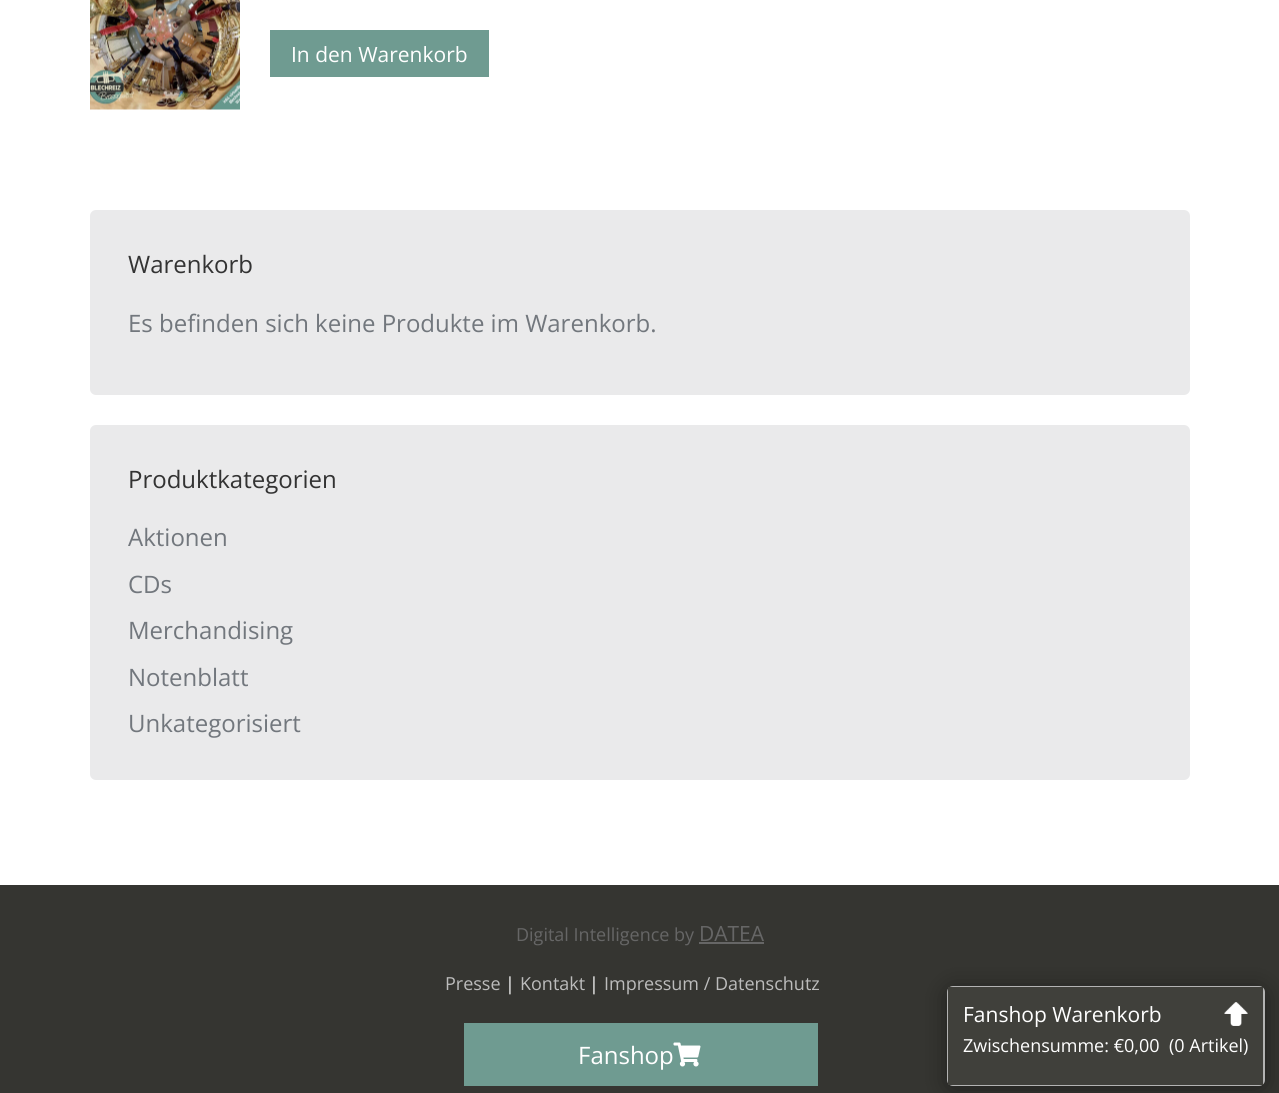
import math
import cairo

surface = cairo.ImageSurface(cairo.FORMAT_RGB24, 1279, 1093)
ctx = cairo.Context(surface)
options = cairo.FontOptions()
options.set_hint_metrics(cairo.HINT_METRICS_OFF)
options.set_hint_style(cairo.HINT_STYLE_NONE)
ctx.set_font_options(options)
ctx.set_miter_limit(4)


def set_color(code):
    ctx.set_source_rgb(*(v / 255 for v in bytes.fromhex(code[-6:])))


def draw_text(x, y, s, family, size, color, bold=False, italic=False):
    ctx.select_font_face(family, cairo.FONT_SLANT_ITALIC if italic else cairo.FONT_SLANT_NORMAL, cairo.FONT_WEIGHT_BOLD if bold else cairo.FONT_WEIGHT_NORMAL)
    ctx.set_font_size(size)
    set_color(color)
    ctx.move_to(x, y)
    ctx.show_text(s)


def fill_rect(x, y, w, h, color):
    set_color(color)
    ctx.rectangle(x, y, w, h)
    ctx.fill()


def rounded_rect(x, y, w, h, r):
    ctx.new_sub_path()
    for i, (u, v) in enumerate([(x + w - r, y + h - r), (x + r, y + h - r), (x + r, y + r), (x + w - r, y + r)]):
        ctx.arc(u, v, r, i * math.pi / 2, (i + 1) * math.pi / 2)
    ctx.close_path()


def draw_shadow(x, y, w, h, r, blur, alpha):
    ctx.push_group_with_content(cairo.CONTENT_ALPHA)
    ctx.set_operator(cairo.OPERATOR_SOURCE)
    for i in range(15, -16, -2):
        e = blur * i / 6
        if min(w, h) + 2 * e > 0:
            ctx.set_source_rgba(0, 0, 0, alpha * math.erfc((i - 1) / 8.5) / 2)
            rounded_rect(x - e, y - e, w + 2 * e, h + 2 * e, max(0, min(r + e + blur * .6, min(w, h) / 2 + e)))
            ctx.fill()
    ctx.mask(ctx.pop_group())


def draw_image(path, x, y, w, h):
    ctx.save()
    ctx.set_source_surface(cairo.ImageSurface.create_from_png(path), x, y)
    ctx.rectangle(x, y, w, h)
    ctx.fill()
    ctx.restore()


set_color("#ffffff")
ctx.paint()
draw_image("assets/img1.png", 90, 0, 150, 110)
fill_rect(270, 30, 219, 47, "#6f9b91")
draw_text(291, 62, "In den Warenkorb", "Open Sans", 21, "#ffffff")
set_color("#eaeaeb")
rounded_rect(90, 210, 1100, 185, 6)
ctx.fill()
draw_text(128, 273, "Warenkorb", "Open Sans", 24, "#333333")
draw_text(128, 332, "Es befinden sich keine Produkte im Warenkorb.", "Open Sans", 24, "#72777d")
set_color("#eaeaeb")
rounded_rect(90, 425, 1100, 355, 6)
ctx.fill()
draw_text(128, 488, "Produktkategorien", "Open Sans", 24, "#333333")
draw_text(128, 546, "Aktionen", "Open Sans", 24, "#72777d")
draw_text(128, 593, "CDs", "Open Sans", 24, "#72777d")
draw_text(128, 639, "Merchandising", "Open Sans", 24, "#72777d")
draw_text(128, 686, "Notenblatt", "Open Sans", 24, "#72777d")
draw_text(128, 732, "Unkategorisiert", "Open Sans", 24, "#72777d")
fill_rect(0, 885, 1279, 208, "#353531")
draw_text(516, 941, "Digital Intelligence by", "Open Sans", 18, "#666666")
draw_text(699, 941, "DATEA", "Open Sans", 21, "#666666")
fill_rect(699, 942, 65, 2, "#666666")
draw_text(445, 990, "Presse", "Open Sans", 18, "#bcbcbc")
draw_text(505, 990, "|", "Open Sans", 18, "#ffffff")
draw_text(520, 990, "Kontakt", "Open Sans", 18, "#bcbcbc")
draw_text(589, 990, "|", "Open Sans", 18, "#ffffff")
draw_text(604, 990, "Impressum / Datenschutz", "Open Sans", 18, "#bcbcbc")
set_color("#000000")
draw_shadow(947, 989, 318, 100, 6, 12, 0.4)
rounded_rect(948, 987, 316, 98, 5)
set_color("#b3b3b3")
ctx.stroke()
fill_rect(948, 987, 315, 98, "#40403b")
draw_text(963, 1022, "Fanshop Warenkorb", "Open Sans", 21, "#ffffff")
draw_image("assets/img2.png", 1224, 1002, 24, 24)
draw_text(963, 1052, "Zwischensumme: €0,00", "Open Sans", 18, "#ffffff")
draw_text(1169, 1052, "(0 Artikel)", "Open Sans", 18, "#ffffff")
fill_rect(464, 1023, 354, 63, "#6f9b91")
draw_text(578, 1064, "Fanshop", "Open Sans", 24, "#ffffff")
draw_image("assets/img3.png", 673, 1042, 28, 25)
surface.write_to_png("output.png")
